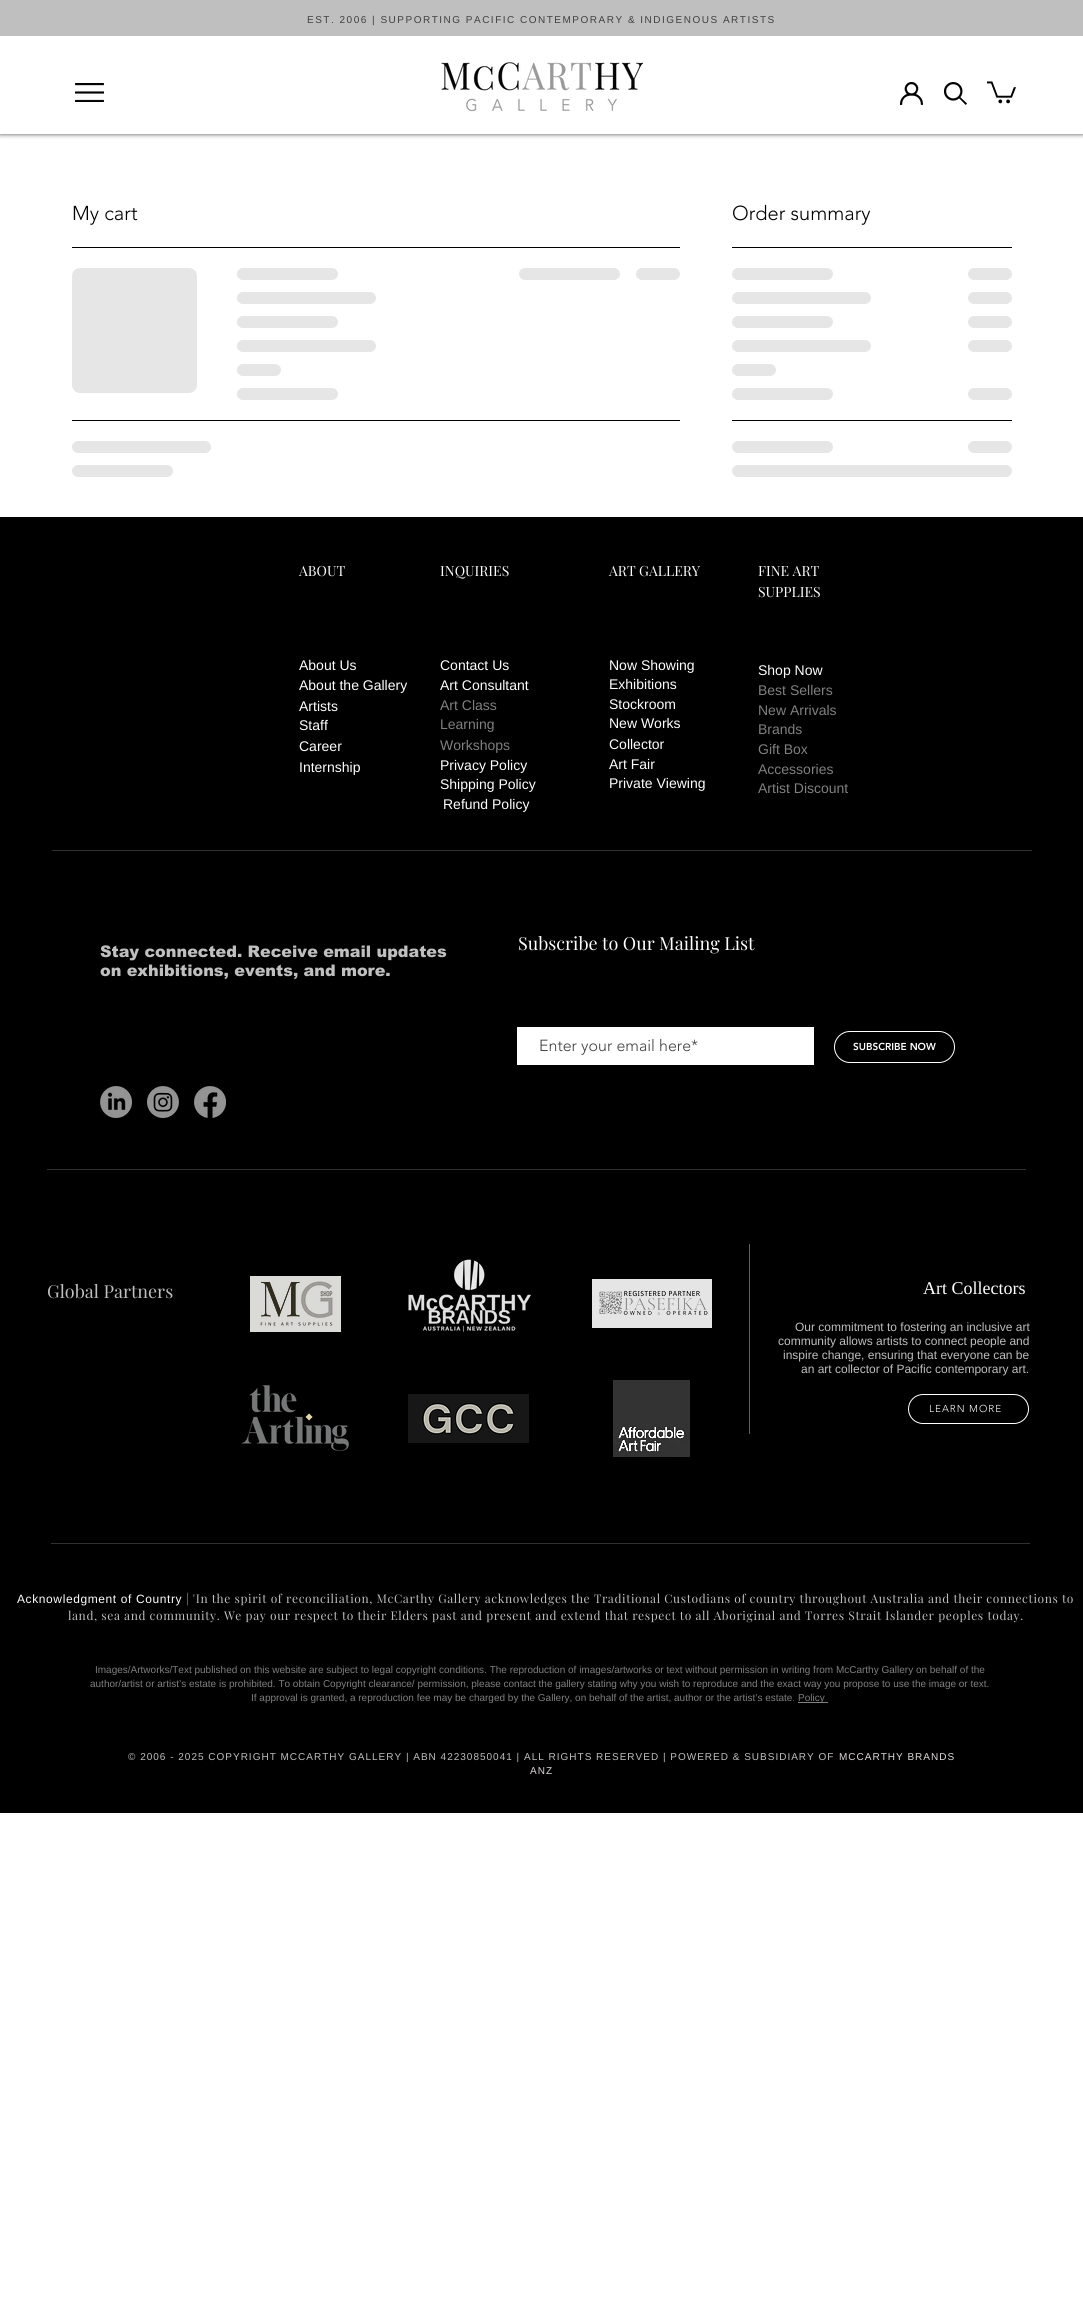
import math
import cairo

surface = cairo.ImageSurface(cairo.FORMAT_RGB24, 1083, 2306)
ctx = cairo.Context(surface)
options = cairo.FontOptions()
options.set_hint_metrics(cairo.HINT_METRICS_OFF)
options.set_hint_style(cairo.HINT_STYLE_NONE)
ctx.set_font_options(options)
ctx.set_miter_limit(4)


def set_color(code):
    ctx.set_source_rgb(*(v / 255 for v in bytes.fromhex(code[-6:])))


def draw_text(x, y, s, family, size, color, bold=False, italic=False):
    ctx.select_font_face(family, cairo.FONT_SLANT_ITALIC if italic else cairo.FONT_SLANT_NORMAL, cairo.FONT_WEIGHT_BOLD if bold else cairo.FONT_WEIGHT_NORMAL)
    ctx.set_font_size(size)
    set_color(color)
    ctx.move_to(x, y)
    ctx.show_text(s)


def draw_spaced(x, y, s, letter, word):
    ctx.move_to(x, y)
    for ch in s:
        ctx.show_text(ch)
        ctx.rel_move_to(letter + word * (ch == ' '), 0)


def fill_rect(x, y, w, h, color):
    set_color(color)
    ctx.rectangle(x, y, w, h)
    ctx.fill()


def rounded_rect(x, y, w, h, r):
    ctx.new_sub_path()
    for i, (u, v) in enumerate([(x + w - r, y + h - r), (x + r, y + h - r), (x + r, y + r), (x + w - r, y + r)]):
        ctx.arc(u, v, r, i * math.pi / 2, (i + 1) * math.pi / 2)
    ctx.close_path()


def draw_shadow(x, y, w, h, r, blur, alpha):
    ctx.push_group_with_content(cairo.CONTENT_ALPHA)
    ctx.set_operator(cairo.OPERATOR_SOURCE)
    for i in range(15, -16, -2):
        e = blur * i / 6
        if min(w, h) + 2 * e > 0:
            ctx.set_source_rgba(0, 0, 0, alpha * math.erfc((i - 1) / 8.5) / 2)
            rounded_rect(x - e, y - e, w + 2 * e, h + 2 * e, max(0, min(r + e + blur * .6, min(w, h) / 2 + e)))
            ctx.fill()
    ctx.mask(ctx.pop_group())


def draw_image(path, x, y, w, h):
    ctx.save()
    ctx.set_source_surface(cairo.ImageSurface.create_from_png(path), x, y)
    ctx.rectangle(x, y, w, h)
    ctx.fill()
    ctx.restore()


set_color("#ffffff")
ctx.paint()
ctx.save()
ctx.rectangle(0, 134, 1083, 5)
ctx.clip()
set_color("#000000")
draw_shadow(0, 0, 1083, 134, 0, 2.5, 0.7)
ctx.restore()
fill_rect(0, 0, 1083, 36, "#bfbfbf")
ctx.select_font_face("Liberation Sans")
ctx.set_font_size(10)
set_color("#404040")
draw_spaced(307, 23, "EST. 2006 | SUPPORTING PACIFIC CONTEMPORARY & INDIGENOUS ARTISTS", 1.5, 0)
draw_image("assets/img1.png", 75, 83, 29, 19)
draw_image("assets/img2.png", 441, 62, 202, 50)
draw_image("assets/img3.png", 900, 82, 23, 23)
draw_image("assets/img4.png", 944, 82, 23, 23)
draw_image("assets/img5.png", 987, 81, 29, 23)
fill_rect(72, 247, 608, 1, "#000000")
draw_text(72, 220, "My cart", "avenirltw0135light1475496 Light", 20, "#000000")
gradient = cairo.LinearGradient(72, 331, 572, 331)
gradient.add_color_stop_rgba(0.25, 0.902, 0.902, 0.902, 1)
gradient.add_color_stop_rgba(0.37, 0.8, 0.8, 0.8, 1)
gradient.add_color_stop_rgba(0.63, 0.902, 0.902, 0.902, 1)
ctx.set_source(gradient)
rounded_rect(72, 268, 125, 125, 8)
ctx.fill()
gradient = cairo.LinearGradient(237, 274, 641, 274)
gradient.add_color_stop_rgba(0.25, 0.902, 0.902, 0.902, 1)
gradient.add_color_stop_rgba(0.37, 0.8, 0.8, 0.8, 1)
gradient.add_color_stop_rgba(0.63, 0.902, 0.902, 0.902, 1)
ctx.set_source(gradient)
rounded_rect(237, 268, 101, 12, 6)
ctx.fill()
gradient = cairo.LinearGradient(237, 298, 793, 298)
gradient.add_color_stop_rgba(0.25, 0.902, 0.902, 0.902, 1)
gradient.add_color_stop_rgba(0.37, 0.8, 0.8, 0.8, 1)
gradient.add_color_stop_rgba(0.63, 0.902, 0.902, 0.902, 1)
ctx.set_source(gradient)
rounded_rect(237, 292, 139, 12, 6)
ctx.fill()
gradient = cairo.LinearGradient(237, 322, 641, 322)
gradient.add_color_stop_rgba(0.25, 0.902, 0.902, 0.902, 1)
gradient.add_color_stop_rgba(0.37, 0.8, 0.8, 0.8, 1)
gradient.add_color_stop_rgba(0.63, 0.902, 0.902, 0.902, 1)
ctx.set_source(gradient)
rounded_rect(237, 316, 101, 12, 6)
ctx.fill()
gradient = cairo.LinearGradient(237, 346, 793, 346)
gradient.add_color_stop_rgba(0.25, 0.902, 0.902, 0.902, 1)
gradient.add_color_stop_rgba(0.37, 0.8, 0.8, 0.8, 1)
gradient.add_color_stop_rgba(0.63, 0.902, 0.902, 0.902, 1)
ctx.set_source(gradient)
rounded_rect(237, 340, 139, 12, 6)
ctx.fill()
gradient = cairo.LinearGradient(237, 370, 413, 370)
gradient.add_color_stop_rgba(0.25, 0.902, 0.902, 0.902, 1)
gradient.add_color_stop_rgba(0.37, 0.8, 0.8, 0.8, 1)
gradient.add_color_stop_rgba(0.63, 0.902, 0.902, 0.902, 1)
ctx.set_source(gradient)
rounded_rect(237, 364, 44, 12, 6)
ctx.fill()
gradient = cairo.LinearGradient(237, 394, 641, 394)
gradient.add_color_stop_rgba(0.25, 0.902, 0.902, 0.902, 1)
gradient.add_color_stop_rgba(0.37, 0.8, 0.8, 0.8, 1)
gradient.add_color_stop_rgba(0.63, 0.902, 0.902, 0.902, 1)
ctx.set_source(gradient)
rounded_rect(237, 388, 101, 12, 6)
ctx.fill()
gradient = cairo.LinearGradient(519, 274, 923, 274)
gradient.add_color_stop_rgba(0.25, 0.902, 0.902, 0.902, 1)
gradient.add_color_stop_rgba(0.37, 0.8, 0.8, 0.8, 1)
gradient.add_color_stop_rgba(0.63, 0.902, 0.902, 0.902, 1)
ctx.set_source(gradient)
rounded_rect(519, 268, 101, 12, 6)
ctx.fill()
gradient = cairo.LinearGradient(636, 274, 812, 274)
gradient.add_color_stop_rgba(0.25, 0.902, 0.902, 0.902, 1)
gradient.add_color_stop_rgba(0.37, 0.8, 0.8, 0.8, 1)
gradient.add_color_stop_rgba(0.63, 0.902, 0.902, 0.902, 1)
ctx.set_source(gradient)
rounded_rect(636, 268, 44, 12, 6)
ctx.fill()
fill_rect(72, 420, 608, 1, "#000000")
gradient = cairo.LinearGradient(72, 447, 628, 447)
gradient.add_color_stop_rgba(0.25, 0.902, 0.902, 0.902, 1)
gradient.add_color_stop_rgba(0.37, 0.8, 0.8, 0.8, 1)
gradient.add_color_stop_rgba(0.63, 0.902, 0.902, 0.902, 1)
ctx.set_source(gradient)
rounded_rect(72, 441, 139, 12, 6)
ctx.fill()
gradient = cairo.LinearGradient(72, 471, 476, 471)
gradient.add_color_stop_rgba(0.25, 0.902, 0.902, 0.902, 1)
gradient.add_color_stop_rgba(0.37, 0.8, 0.8, 0.8, 1)
gradient.add_color_stop_rgba(0.63, 0.902, 0.902, 0.902, 1)
ctx.set_source(gradient)
rounded_rect(72, 465, 101, 12, 6)
ctx.fill()
fill_rect(732, 247, 280, 1, "#000000")
draw_text(732, 220, "Order summary", "avenirltw0135light1475496 Light", 20, "#000000")
gradient = cairo.LinearGradient(732, 274, 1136, 274)
gradient.add_color_stop_rgba(0.25, 0.902, 0.902, 0.902, 1)
gradient.add_color_stop_rgba(0.37, 0.8, 0.8, 0.8, 1)
gradient.add_color_stop_rgba(0.63, 0.902, 0.902, 0.902, 1)
ctx.set_source(gradient)
rounded_rect(732, 268, 101, 12, 6)
ctx.fill()
gradient = cairo.LinearGradient(968, 274, 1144, 274)
gradient.add_color_stop_rgba(0.25, 0.902, 0.902, 0.902, 1)
gradient.add_color_stop_rgba(0.37, 0.8, 0.8, 0.8, 1)
gradient.add_color_stop_rgba(0.63, 0.902, 0.902, 0.902, 1)
ctx.set_source(gradient)
rounded_rect(968, 268, 44, 12, 6)
ctx.fill()
gradient = cairo.LinearGradient(732, 298, 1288, 298)
gradient.add_color_stop_rgba(0.25, 0.902, 0.902, 0.902, 1)
gradient.add_color_stop_rgba(0.37, 0.8, 0.8, 0.8, 1)
gradient.add_color_stop_rgba(0.63, 0.902, 0.902, 0.902, 1)
ctx.set_source(gradient)
rounded_rect(732, 292, 139, 12, 6)
ctx.fill()
gradient = cairo.LinearGradient(968, 298, 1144, 298)
gradient.add_color_stop_rgba(0.25, 0.902, 0.902, 0.902, 1)
gradient.add_color_stop_rgba(0.37, 0.8, 0.8, 0.8, 1)
gradient.add_color_stop_rgba(0.63, 0.902, 0.902, 0.902, 1)
ctx.set_source(gradient)
rounded_rect(968, 292, 44, 12, 6)
ctx.fill()
gradient = cairo.LinearGradient(732, 322, 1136, 322)
gradient.add_color_stop_rgba(0.25, 0.902, 0.902, 0.902, 1)
gradient.add_color_stop_rgba(0.37, 0.8, 0.8, 0.8, 1)
gradient.add_color_stop_rgba(0.63, 0.902, 0.902, 0.902, 1)
ctx.set_source(gradient)
rounded_rect(732, 316, 101, 12, 6)
ctx.fill()
gradient = cairo.LinearGradient(968, 322, 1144, 322)
gradient.add_color_stop_rgba(0.25, 0.902, 0.902, 0.902, 1)
gradient.add_color_stop_rgba(0.37, 0.8, 0.8, 0.8, 1)
gradient.add_color_stop_rgba(0.63, 0.902, 0.902, 0.902, 1)
ctx.set_source(gradient)
rounded_rect(968, 316, 44, 12, 6)
ctx.fill()
gradient = cairo.LinearGradient(732, 346, 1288, 346)
gradient.add_color_stop_rgba(0.25, 0.902, 0.902, 0.902, 1)
gradient.add_color_stop_rgba(0.37, 0.8, 0.8, 0.8, 1)
gradient.add_color_stop_rgba(0.63, 0.902, 0.902, 0.902, 1)
ctx.set_source(gradient)
rounded_rect(732, 340, 139, 12, 6)
ctx.fill()
gradient = cairo.LinearGradient(968, 346, 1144, 346)
gradient.add_color_stop_rgba(0.25, 0.902, 0.902, 0.902, 1)
gradient.add_color_stop_rgba(0.37, 0.8, 0.8, 0.8, 1)
gradient.add_color_stop_rgba(0.63, 0.902, 0.902, 0.902, 1)
ctx.set_source(gradient)
rounded_rect(968, 340, 44, 12, 6)
ctx.fill()
gradient = cairo.LinearGradient(732, 370, 908, 370)
gradient.add_color_stop_rgba(0.25, 0.902, 0.902, 0.902, 1)
gradient.add_color_stop_rgba(0.37, 0.8, 0.8, 0.8, 1)
gradient.add_color_stop_rgba(0.63, 0.902, 0.902, 0.902, 1)
ctx.set_source(gradient)
rounded_rect(732, 364, 44, 12, 6)
ctx.fill()
gradient = cairo.LinearGradient(732, 394, 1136, 394)
gradient.add_color_stop_rgba(0.25, 0.902, 0.902, 0.902, 1)
gradient.add_color_stop_rgba(0.37, 0.8, 0.8, 0.8, 1)
gradient.add_color_stop_rgba(0.63, 0.902, 0.902, 0.902, 1)
ctx.set_source(gradient)
rounded_rect(732, 388, 101, 12, 6)
ctx.fill()
gradient = cairo.LinearGradient(968, 394, 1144, 394)
gradient.add_color_stop_rgba(0.25, 0.902, 0.902, 0.902, 1)
gradient.add_color_stop_rgba(0.37, 0.8, 0.8, 0.8, 1)
gradient.add_color_stop_rgba(0.63, 0.902, 0.902, 0.902, 1)
ctx.set_source(gradient)
rounded_rect(968, 388, 44, 12, 6)
ctx.fill()
fill_rect(732, 420, 280, 1, "#000000")
gradient = cairo.LinearGradient(732, 447, 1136, 447)
gradient.add_color_stop_rgba(0.25, 0.902, 0.902, 0.902, 1)
gradient.add_color_stop_rgba(0.37, 0.8, 0.8, 0.8, 1)
gradient.add_color_stop_rgba(0.63, 0.902, 0.902, 0.902, 1)
ctx.set_source(gradient)
rounded_rect(732, 441, 101, 12, 6)
ctx.fill()
gradient = cairo.LinearGradient(968, 447, 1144, 447)
gradient.add_color_stop_rgba(0.25, 0.902, 0.902, 0.902, 1)
gradient.add_color_stop_rgba(0.37, 0.8, 0.8, 0.8, 1)
gradient.add_color_stop_rgba(0.63, 0.902, 0.902, 0.902, 1)
ctx.set_source(gradient)
rounded_rect(968, 441, 44, 12, 6)
ctx.fill()
gradient = cairo.LinearGradient(732, 471, 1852, 471)
gradient.add_color_stop_rgba(0.25, 0.902, 0.902, 0.902, 1)
gradient.add_color_stop_rgba(0.37, 0.8, 0.8, 0.8, 1)
gradient.add_color_stop_rgba(0.63, 0.902, 0.902, 0.902, 1)
ctx.set_source(gradient)
rounded_rect(732, 465, 280, 12, 6)
ctx.fill()
fill_rect(0, 517, 1083, 1296, "#000000")
draw_text(299, 576, "ABOUT", "Playfair Display", 14, "#ffffff")
draw_text(440, 576, "INQUIRIES", "Playfair Display", 14, "#ffffff")
draw_text(609, 576, "ART GALLERY", "Playfair Display", 14, "#ffffff")
draw_text(758, 576, "FINE ART", "Playfair Display", 14, "#ffffff")
draw_text(758, 597, "SUPPLIES", "Playfair Display", 14, "#ffffff")
draw_text(299, 670, "About Us", "Liberation Sans", 14, "#ffffff")
draw_text(440, 670, "Contact Us", "Liberation Sans", 14, "#ffffff")
draw_text(609, 670, "Now Showing", "Liberation Sans", 14, "#ffffff")
draw_text(758, 675, "Shop Now", "Liberation Sans", 14, "#ffffff")
draw_text(299, 690, "About the Gallery", "Liberation Sans", 14, "#ffffff")
draw_text(440, 690, "Art Consultant", "Liberation Sans", 14, "#ffffff")
draw_text(609, 689, "Exhibitions", "Liberation Sans", 14, "#ffffff")
draw_text(758, 695, "Best Sellers", "Liberation Sans", 14, "#808080")
draw_text(299, 711, "Artists", "Liberation Sans", 14, "#ffffff")
draw_text(440, 710, "Art Class", "Liberation Sans", 14, "#808080")
draw_text(609, 709, "Stockroom", "Liberation Sans", 14, "#ffffff")
draw_text(758, 715, "New Arrivals", "Liberation Sans", 14, "#808080")
draw_text(299, 730, "Staff", "Liberation Sans", 14, "#ffffff")
draw_text(440, 729, "Learning", "Liberation Sans", 14, "#808080")
draw_text(609, 728, "New Works", "Liberation Sans", 14, "#ffffff")
draw_text(758, 734, "Brands", "Liberation Sans", 14, "#808080")
draw_text(299, 751, "Career", "Liberation Sans", 14, "#ffffff")
draw_text(440, 750, "Workshops", "Liberation Sans", 14, "#808080")
draw_text(609, 749, "Collector", "Liberation Sans", 14, "#ffffff")
draw_text(758, 754, "Gift Box", "Liberation Sans", 14, "#808080")
draw_text(299, 772, "Internship", "Liberation Sans", 14, "#ffffff")
draw_text(440, 770, "Privacy Policy", "Liberation Sans", 14, "#ffffff")
draw_text(609, 769, "Art Fair", "Liberation Sans", 14, "#ffffff")
draw_text(758, 774, "Accessories", "Liberation Sans", 14, "#808080")
draw_text(440, 789, "Shipping Policy", "Liberation Sans", 14, "#ffffff")
draw_text(609, 788, "Private Viewing", "Liberation Sans", 14, "#ffffff")
draw_text(758, 793, "Artist Discount", "Liberation Sans", 14, "#808080")
draw_text(443, 809, "Refund Policy", "Liberation Sans", 14, "#ffffff")
fill_rect(52, 850, 980, 1, "#313131")
draw_text(100, 957, "Stay connected. Receive email updates", "arial Black", 16, "#bfbfbf")
draw_text(100, 976, "on exhibitions, events, and more.", "arial Black", 16, "#bfbfbf")
draw_text(518, 950, "Subscribe to Our Mailing List", "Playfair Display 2", 18, "#ffffff")
fill_rect(517, 1027, 297, 38, "#ffffff")
draw_text(539, 1051, "Enter your email here*", "avenirltw0135light1475496 Light", 16, "#404040")
rounded_rect(834.5, 1031.5, 120, 31, 15.5)
set_color("#ffffff")
ctx.set_line_width(1)
ctx.stroke()
draw_text(853, 1050, "SUBSCRIBE NOW", "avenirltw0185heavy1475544 Black", 10, "#ffffff")
draw_image("assets/img6.png", 100, 1086, 32, 32)
draw_image("assets/img7.png", 147, 1086, 32, 32)
draw_image("assets/img8.png", 194, 1086, 32, 32)
fill_rect(47, 1169, 979, 1, "#313131")
draw_text(47, 1298, "Global Partners", "Playfair Display 2", 18, "#bfbfbf")
draw_image("assets/img9.png", 250, 1276, 91, 56)
draw_image("assets/img10.png", 408, 1259, 123, 73)
draw_image("assets/img11.png", 592, 1279, 120, 49)
fill_rect(749, 1244, 1, 190, "#606060")
draw_text(923, 1294, "Art Collectors", "Liberation Serif", 18, "#ffffff")
draw_text(795, 1331, "Our commitment to fostering an inclusive art", "Liberation Sans", 12, "#bfbfbf")
draw_text(778, 1345, "community allows artists to connect people and", "Liberation Sans", 12, "#bfbfbf")
draw_text(783, 1359, "inspire change, ensuring that everyone can be", "Liberation Sans", 12, "#bfbfbf")
draw_text(801, 1373, "an art collector of Pacific contemporary art.", "Liberation Sans", 12, "#bfbfbf")
draw_image("assets/img12.png", 241, 1385, 108, 66)
draw_image("assets/img13.png", 408, 1394, 121, 49)
draw_image("assets/img14.png", 613, 1380, 77, 77)
rounded_rect(908.5, 1394.5, 120, 29, 14.5)
set_color("#ffffff")
ctx.stroke()
ctx.select_font_face("avenirltw0135light1475496 Light")
ctx.set_font_size(10)
draw_spaced(929, 1412, "LEARN MORE", 1, 0)
fill_rect(51, 1543, 979, 1, "#313131")
ctx.select_font_face("Liberation Sans")
ctx.set_font_size(12)
set_color("#ffffff")
draw_spaced(17, 1603, "Acknowledgment of Country", 0.6, 0)
ctx.select_font_face("Playfair Display 2")
set_color("#bfbfbf")
draw_spaced(186, 1603, "| 'In the spirit of reconciliation, McCarthy Gallery acknowledges the Traditional Custodians of country throughout Australia and their connections to", 0.6, 0)
draw_spaced(68, 1620, "land, sea and community. We pay our respect to their Elders past and present and extend that respect to all Aboriginal and Torres Strait Islander peoples today.", 0.6, 0)
draw_text(95, 1673, "Images/Artworks/Text published on this website are subject to legal copyright conditions. The reproduction of images/artworks or text without permission in writing from McCarthy Gallery on behalf of the", "Liberation Sans", 10, "#808080")
draw_text(90, 1687, "author/artist or artist’s estate is prohibited. To obtain Copyright clearance/ permission, please contact the gallery stating why you wish to reproduce and the exact way you propose to use the image or text.", "Liberation Sans", 10, "#808080")
draw_text(251, 1701, "If approval is granted, a reproduction fee may be charged by the Gallery, on behalf of the artist, author or the artist’s estate.", "Liberation Sans", 10, "#808080")
fill_rect(798, 1702, 30, 1, "#808080")
draw_text(798, 1701, "Policy", "Liberation Sans", 10, "#808080")
set_color("#bfbfbf")
draw_spaced(128, 1760, "© 2006 - 2025 COPYRIGHT MCCARTHY GALLERY | ABN 42230850041 | ALL RIGHTS RESERVED | POWERED & SUBSIDIARY OF", 1, 0)
set_color("#e0dbdb")
draw_spaced(839, 1760, "MCCARTHY BRANDS", 1, 0)
draw_spaced(530, 1774, "ANZ", 1, 0)
surface.write_to_png("output.png")
